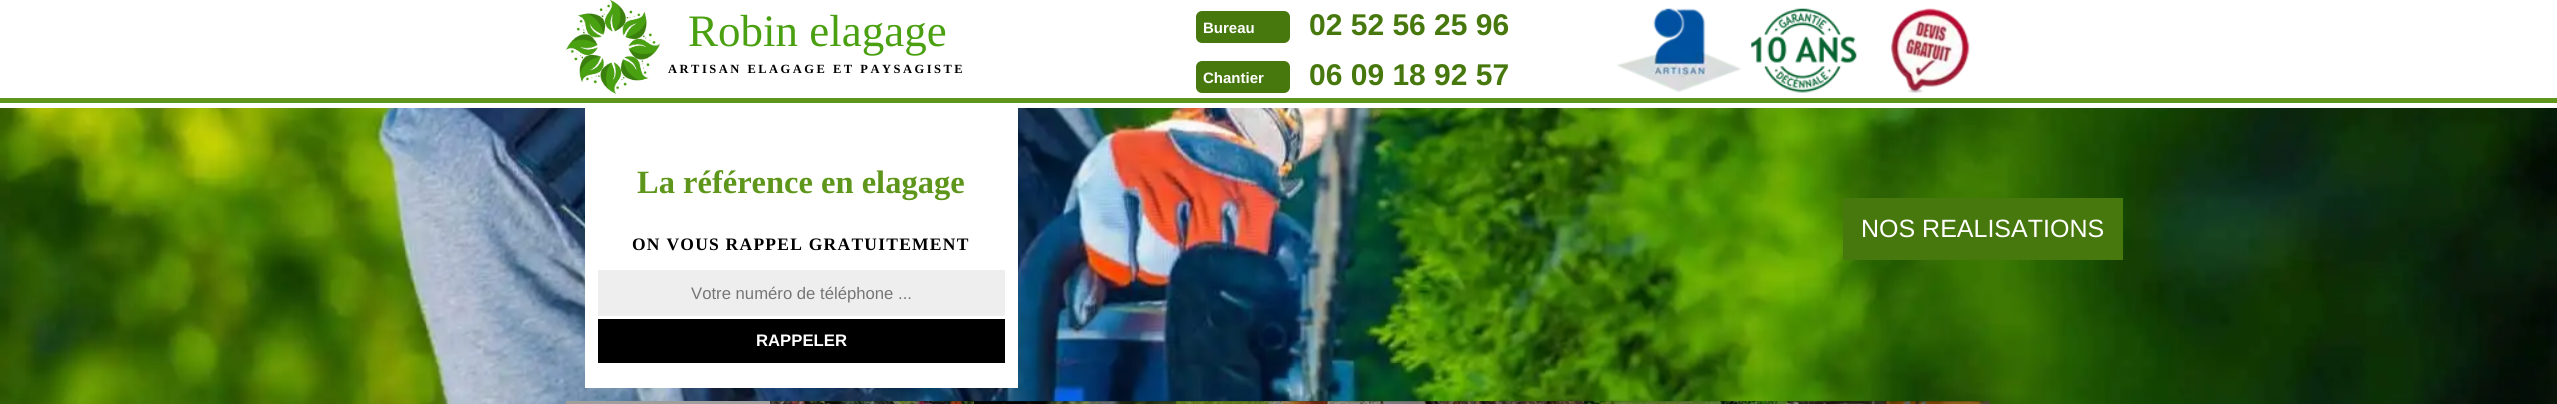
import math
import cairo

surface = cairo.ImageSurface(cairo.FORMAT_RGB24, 2557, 404)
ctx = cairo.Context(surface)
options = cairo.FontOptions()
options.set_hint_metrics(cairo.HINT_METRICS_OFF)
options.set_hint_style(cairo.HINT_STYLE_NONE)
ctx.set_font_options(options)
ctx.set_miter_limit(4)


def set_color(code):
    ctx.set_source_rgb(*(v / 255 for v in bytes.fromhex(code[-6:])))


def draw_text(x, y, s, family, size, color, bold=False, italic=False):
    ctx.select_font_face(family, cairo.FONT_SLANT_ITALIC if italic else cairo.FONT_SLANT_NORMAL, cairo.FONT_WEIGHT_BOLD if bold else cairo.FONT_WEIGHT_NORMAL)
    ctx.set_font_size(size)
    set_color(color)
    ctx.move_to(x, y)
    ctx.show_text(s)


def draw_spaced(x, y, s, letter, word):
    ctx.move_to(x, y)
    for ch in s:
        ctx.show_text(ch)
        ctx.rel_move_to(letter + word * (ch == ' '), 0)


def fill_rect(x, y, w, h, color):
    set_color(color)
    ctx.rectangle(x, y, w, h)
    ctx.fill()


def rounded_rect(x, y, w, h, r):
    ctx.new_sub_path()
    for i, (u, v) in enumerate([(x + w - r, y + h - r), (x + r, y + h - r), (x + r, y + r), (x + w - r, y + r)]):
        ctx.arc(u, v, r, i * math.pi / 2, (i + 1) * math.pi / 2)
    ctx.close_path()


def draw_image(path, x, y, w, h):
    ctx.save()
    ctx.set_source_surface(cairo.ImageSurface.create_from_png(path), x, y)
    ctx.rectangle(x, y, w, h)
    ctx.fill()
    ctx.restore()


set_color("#ffffff")
ctx.paint()
draw_image("assets/img1.png", 566, 0, 94, 94)
draw_text(688, 46, "Robin elagage", "Liberation Serif", 45, "#4aa011")
ctx.select_font_face("Liberation Serif", cairo.FONT_SLANT_NORMAL, cairo.FONT_WEIGHT_BOLD)
ctx.set_font_size(12.5)
set_color("#000000")
draw_spaced(668, 73, "ARTISAN ELAGAGE ET PAYSAGISTE", 2.5, 0)
set_color("#47780d")
rounded_rect(1196, 11, 94, 32, 6)
ctx.fill()
draw_text(1203, 33, "Bureau", "Liberation Sans", 15, "#ffffff", bold=True)
draw_text(1309, 35, "02 52 56 25 96", "Liberation Sans", 30, "#47780d", bold=True)
rounded_rect(1196, 61, 94, 32, 6)
ctx.fill()
draw_text(1203, 83, "Chantier", "Liberation Sans", 15, "#ffffff", bold=True)
draw_text(1309, 85, "06 09 18 92 57", "Liberation Sans", 30, "#47780d", bold=True)
draw_image("assets/img2.png", 1617, 8, 124, 85)
draw_image("assets/img3.png", 1751, 8, 106, 85)
draw_image("assets/img4.png", 1890, 8, 80, 85)
fill_rect(0, 98, 2557, 5, "#5e961b")
draw_image("assets/img5.png", 0, 108, 2557, 296)
fill_rect(585, 108, 433, 280, "#ffffff")
draw_text(637, 193, "La référence en elagage", "Liberation Serif", 32.5, "#5e961b", bold=True)
ctx.set_font_size(17.5)
set_color("#000000")
draw_spaced(632, 250, "ON VOUS RAPPEL GRATUITEMENT", 1.25, 0)
fill_rect(598, 270, 407, 46, "#eeeeee")
draw_text(691, 299, "Votre numéro de téléphone ...", "Liberation Sans", 16.7, "#757575")
fill_rect(598, 319, 407, 44, "#000000")
draw_text(756, 346, "RAPPELER", "Liberation Sans", 16.7, "#ffffff", bold=True)
fill_rect(1843, 198, 280, 62, "#47780d")
draw_text(1861, 237, "NOS REALISATIONS", "Liberation Sans", 25, "#ffffff")
fill_rect(566, 401, 204, 3, "#9e9e9d")
fill_rect(770, 401, 204, 3, "#47780d")
draw_image("assets/img6.png", 770, 401, 204, 3)
ctx.set_source_rgba(0, 0, 0, 0.38)
ctx.rectangle(770, 401, 204, 3)
ctx.fill()
draw_image("assets/img7.png", 973, 401, 203, 3)
ctx.rectangle(974, 401, 202, 3)
ctx.fill()
fill_rect(1176, 401, 612, 3, "#47780d")
draw_image("assets/img8.png", 1176, 401, 204, 3)
ctx.set_source_rgba(0, 0, 0, 0.38)
ctx.rectangle(1176, 401, 204, 3)
ctx.fill()
draw_image("assets/img9.png", 1380, 401, 204, 3)
ctx.rectangle(1380, 401, 204, 3)
ctx.fill()
draw_image("assets/img10.png", 1583, 401, 205, 3)
ctx.rectangle(1584, 401, 204, 3)
ctx.fill()
draw_image("assets/img11.png", 1787, 401, 203, 3)
ctx.rectangle(1788, 401, 202, 3)
ctx.fill()
surface.write_to_png("output.png")
